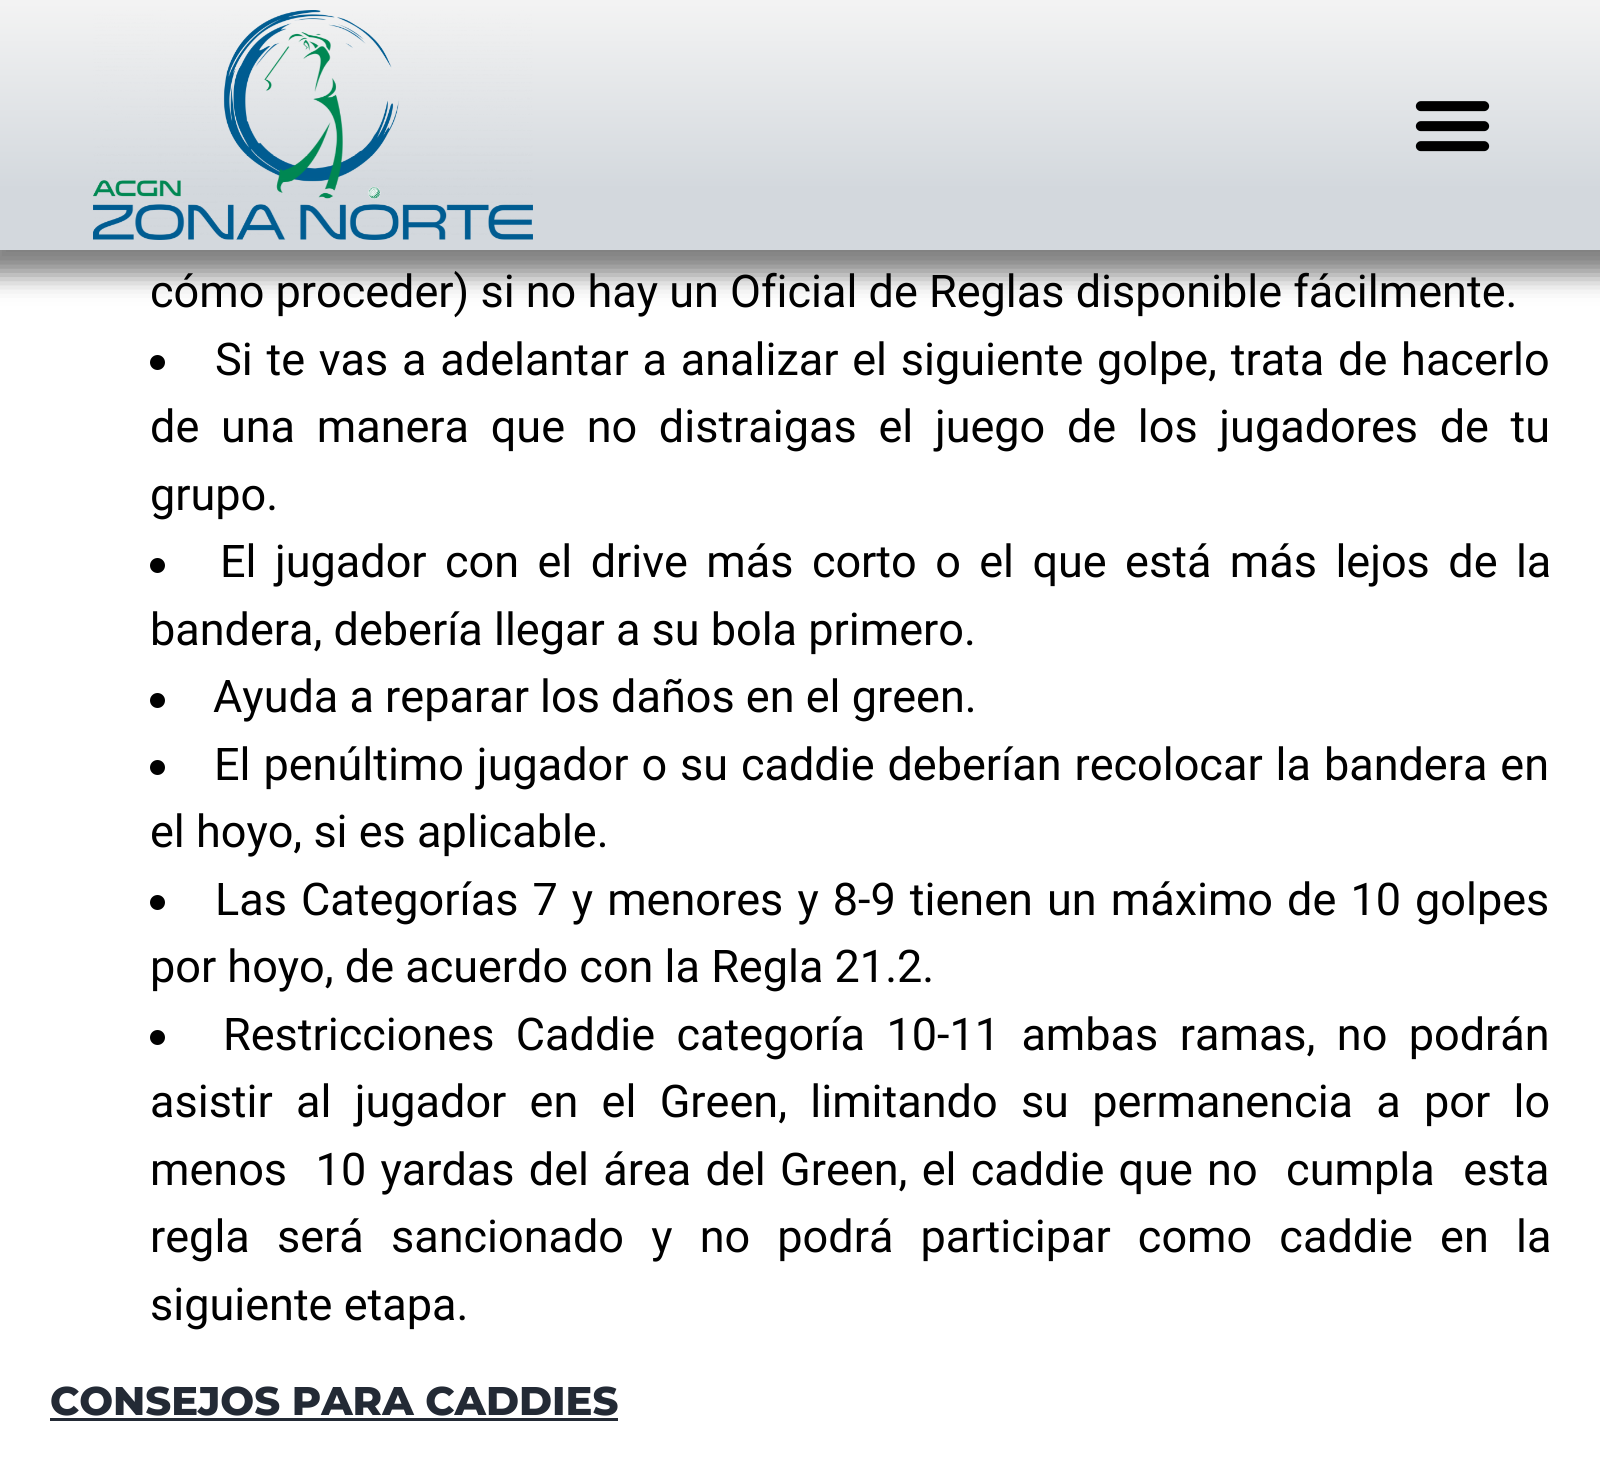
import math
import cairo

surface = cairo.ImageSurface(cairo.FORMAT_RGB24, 1600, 1468)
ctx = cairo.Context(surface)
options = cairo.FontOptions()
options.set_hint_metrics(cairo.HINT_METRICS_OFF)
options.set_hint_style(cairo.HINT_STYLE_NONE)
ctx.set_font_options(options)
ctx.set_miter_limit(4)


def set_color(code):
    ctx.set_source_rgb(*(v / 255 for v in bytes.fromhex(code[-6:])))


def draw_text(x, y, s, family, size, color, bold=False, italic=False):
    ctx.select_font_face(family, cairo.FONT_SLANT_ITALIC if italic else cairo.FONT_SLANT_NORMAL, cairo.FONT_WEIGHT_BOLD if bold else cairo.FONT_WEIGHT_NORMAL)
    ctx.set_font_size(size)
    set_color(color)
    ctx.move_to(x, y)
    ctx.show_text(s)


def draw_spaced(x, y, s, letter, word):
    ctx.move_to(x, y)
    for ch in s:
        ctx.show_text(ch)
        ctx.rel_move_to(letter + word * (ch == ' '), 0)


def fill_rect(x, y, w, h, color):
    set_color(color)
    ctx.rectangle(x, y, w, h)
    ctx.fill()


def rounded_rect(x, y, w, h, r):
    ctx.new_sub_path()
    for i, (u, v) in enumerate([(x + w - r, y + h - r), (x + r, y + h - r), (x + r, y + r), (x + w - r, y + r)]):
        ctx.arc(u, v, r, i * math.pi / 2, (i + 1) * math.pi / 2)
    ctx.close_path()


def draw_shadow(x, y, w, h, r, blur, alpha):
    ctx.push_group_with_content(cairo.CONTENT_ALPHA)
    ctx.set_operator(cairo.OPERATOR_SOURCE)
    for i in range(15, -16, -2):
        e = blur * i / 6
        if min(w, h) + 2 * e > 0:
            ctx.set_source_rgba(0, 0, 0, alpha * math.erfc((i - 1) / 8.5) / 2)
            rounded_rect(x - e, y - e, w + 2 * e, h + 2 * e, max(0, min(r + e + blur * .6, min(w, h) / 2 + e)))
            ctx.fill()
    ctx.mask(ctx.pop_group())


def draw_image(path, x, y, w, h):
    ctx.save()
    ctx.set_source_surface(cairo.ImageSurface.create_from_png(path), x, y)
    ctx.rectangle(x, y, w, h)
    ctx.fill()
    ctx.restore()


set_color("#ffffff")
ctx.paint()
set_color("#000000")
draw_shadow(-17, -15, 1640, 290, 0, 12.5, 0.5)
gradient = cairo.LinearGradient(800, 0, 800, 250)
gradient.add_color_stop_rgba(0.01, 0.953, 0.953, 0.953, 1)
gradient.add_color_stop_rgba(0.76, 0.827, 0.847, 0.867, 1)
ctx.set_source(gradient)
ctx.rectangle(0, 0, 1600, 250)
ctx.fill()
draw_image("assets/img1.png", 93, 10, 440, 230)
draw_image("assets/img2.png", 1415, 101, 75, 51)
draw_text(150, 307, "cómo proceder) si no hay un Oficial de Reglas disponible fácilmente.", "Roboto", 45, "#000000")
ctx.new_path()
ctx.arc(157.5, 362.5, 7.5, 0, 2 * math.pi)
ctx.fill()
draw_spaced(215, 375, "Si te vas a adelantar a analizar el siguiente golpe, trata de hacerlo", 0, 2.6)
draw_spaced(150, 442, "de una manera que no distraigas el juego de los jugadores de tu", 0, 10.5)
draw_text(150, 510, "grupo.", "Roboto", 45, "#000000")
ctx.new_path()
ctx.arc(157.5, 565.5, 7.5, 0, 2 * math.pi)
ctx.fill()
draw_spaced(220, 577, "El jugador con el drive más corto o el que está más lejos de la", 0, 7.25)
draw_text(150, 645, "bandera, debería llegar a su bola primero.", "Roboto", 45, "#000000")
ctx.new_path()
ctx.arc(157.5, 700.5, 7.5, 0, 2 * math.pi)
ctx.fill()
draw_text(213, 712, "Ayuda a reparar los daños en el green.", "Roboto", 45, "#000000")
ctx.new_path()
ctx.arc(157.5, 767.5, 7.5, 0, 2 * math.pi)
ctx.fill()
draw_spaced(214, 780, "El penúltimo jugador o su caddie deberían recolocar la bandera en", 0, 1.75)
draw_text(150, 847, "el hoyo, si es aplicable.", "Roboto", 45, "#000000")
ctx.new_path()
ctx.arc(157.5, 902.5, 7.5, 0, 2 * math.pi)
ctx.fill()
draw_spaced(215, 915, "Las Categorías 7 y menores y 8-9 tienen un máximo de 10 golpes", 0, 2.9)
draw_text(150, 982, "por hoyo, de acuerdo con la Regla 21.2.", "Roboto", 45, "#000000")
ctx.new_path()
ctx.arc(157.5, 1037.5, 7.5, 0, 2 * math.pi)
ctx.fill()
draw_spaced(223, 1050, "Restricciones Caddie categoría 10-11 ambas ramas, no podrán", 0, 10.25)
draw_spaced(150, 1117, "asistir al jugador en el Green, limitando su permanencia a por lo", 0, 12.1)
draw_spaced(150, 1185, "menos  10 yardas del área del Green, el caddie que no  cumpla  esta", 0, 3.1)
draw_spaced(150, 1252, "regla será sancionado y no podrá participar como caddie en la", 0, 16)
draw_text(150, 1320, "siguiente etapa.", "Roboto", 45, "#000000")
draw_text(50, 1415, "CONSEJOS PARA CADDIES", "Montserrat ExtraBold", 40, "#232a35")
fill_rect(50, 1418, 568, 3, "#232a35")
surface.write_to_png("output.png")
